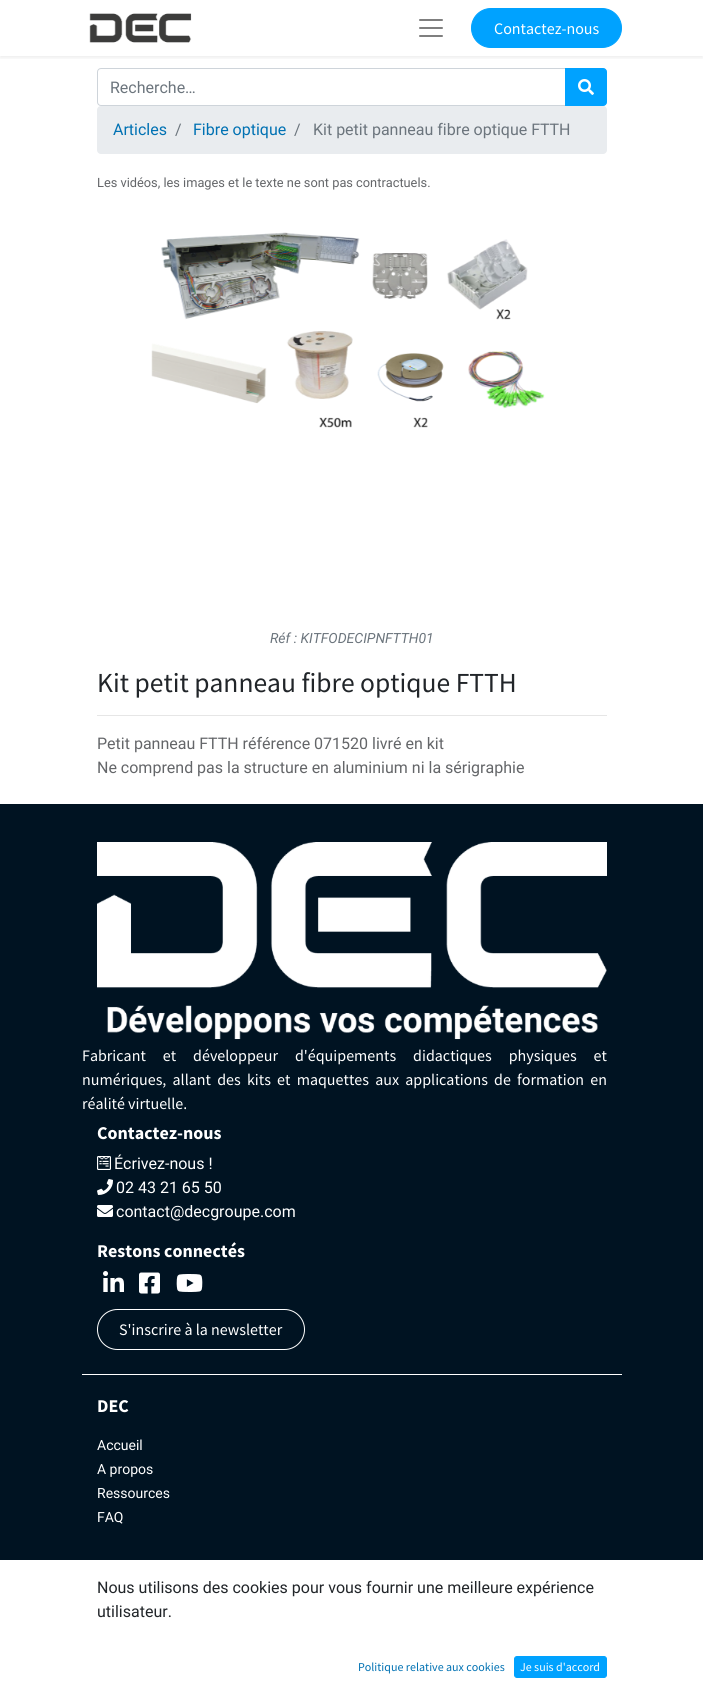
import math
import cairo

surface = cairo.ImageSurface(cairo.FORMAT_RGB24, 703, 1694)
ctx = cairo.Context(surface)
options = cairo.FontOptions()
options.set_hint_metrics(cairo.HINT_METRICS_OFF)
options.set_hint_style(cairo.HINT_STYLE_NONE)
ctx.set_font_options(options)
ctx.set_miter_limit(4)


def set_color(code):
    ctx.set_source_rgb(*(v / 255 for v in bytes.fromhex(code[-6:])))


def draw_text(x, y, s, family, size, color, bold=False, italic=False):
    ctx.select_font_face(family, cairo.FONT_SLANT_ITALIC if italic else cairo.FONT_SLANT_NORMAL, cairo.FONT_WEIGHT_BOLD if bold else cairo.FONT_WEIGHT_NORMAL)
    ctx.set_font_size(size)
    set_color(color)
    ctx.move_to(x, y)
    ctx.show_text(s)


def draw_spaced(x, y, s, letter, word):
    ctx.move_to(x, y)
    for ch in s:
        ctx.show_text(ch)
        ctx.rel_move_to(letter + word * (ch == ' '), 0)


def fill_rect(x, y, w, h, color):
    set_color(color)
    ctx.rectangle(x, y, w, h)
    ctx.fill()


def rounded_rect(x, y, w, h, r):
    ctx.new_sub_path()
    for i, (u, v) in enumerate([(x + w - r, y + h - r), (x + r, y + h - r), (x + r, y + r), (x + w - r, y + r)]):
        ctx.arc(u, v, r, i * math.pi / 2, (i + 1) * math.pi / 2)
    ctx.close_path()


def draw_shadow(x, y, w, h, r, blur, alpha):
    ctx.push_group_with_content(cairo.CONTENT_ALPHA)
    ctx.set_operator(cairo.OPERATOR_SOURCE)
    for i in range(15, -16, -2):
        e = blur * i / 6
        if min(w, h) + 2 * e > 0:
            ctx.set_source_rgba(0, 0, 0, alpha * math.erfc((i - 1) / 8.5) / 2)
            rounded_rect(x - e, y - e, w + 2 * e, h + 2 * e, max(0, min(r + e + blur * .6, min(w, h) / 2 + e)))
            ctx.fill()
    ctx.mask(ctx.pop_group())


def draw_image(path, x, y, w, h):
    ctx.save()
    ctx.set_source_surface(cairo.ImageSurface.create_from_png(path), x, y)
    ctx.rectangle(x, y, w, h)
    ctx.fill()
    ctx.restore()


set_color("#ffffff")
ctx.paint()
ctx.save()
ctx.rectangle(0, 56, 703, 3)
ctx.clip()
set_color("#000000")
draw_shadow(0, 2, 703, 56, 0, 2, 0.07)
ctx.restore()
draw_image("assets/img1.png", 89, 13, 103, 30)
draw_image("assets/img2.png", 419, 19, 24, 18)
set_color("#00a2ff")
rounded_rect(471.5, 8.5, 150, 39, 19.5)
ctx.fill_preserve()
ctx.set_line_width(1)
ctx.stroke()
draw_text(494, 34, "Contactez-nous", "Source Sans Pro", 16, "#ffffff")
ctx.new_path()
ctx.move_to(101, 68.5)
ctx.line_to(565.5, 68.5)
ctx.line_to(565.5, 105.5)
ctx.line_to(101, 105.5)
ctx.curve_to(99, 105.5, 97.5, 104, 97.5, 102)
ctx.line_to(97.5, 72)
ctx.curve_to(97.5, 70, 99, 68.5, 101, 68.5)
ctx.close_path()
set_color("#ced4da")
ctx.stroke()
draw_text(110, 93, "Recherche…", "Roboto", 16, "#6c757d")
set_color("#00a2ff")
ctx.new_path()
ctx.move_to(565.5, 68.5)
ctx.line_to(603, 68.5)
ctx.curve_to(605, 68.5, 606.5, 70, 606.5, 72)
ctx.line_to(606.5, 102)
ctx.curve_to(606.5, 104, 605, 105.5, 603, 105.5)
ctx.line_to(565.5, 105.5)
ctx.close_path()
ctx.fill_preserve()
ctx.stroke()
draw_image("assets/img3.png", 578, 79, 16, 16)
set_color("#e9ecef")
rounded_rect(97, 106, 510, 48, 4)
ctx.fill()
draw_text(113, 135, "Articles", "Roboto", 16, "#0071b3")
draw_text(175, 135, "/", "Roboto", 16, "#6c757d")
draw_text(193, 135, "Fibre optique", "Roboto", 16, "#0071b3")
draw_text(294, 135, "/", "Roboto", 16, "#6c757d")
draw_text(313, 135, "Kit petit panneau fibre optique FTTH", "Roboto", 16, "#6c757d")
draw_text(97, 187, "Les vidéos, les images et le texte ne sont pas contractuels.", "Roboto", 12.8, "#646669")
draw_image("assets/img4.png", 151, 232, 394, 196)
draw_text(270, 643, "Réf : KITFODECIPNFTTH01", "Roboto", 14, "#6c757d", italic=True)
draw_text(97, 692, "Kit petit panneau fibre optique FTTH", "Source Sans Pro", 27.5, "#212529")
fill_rect(97, 715, 510, 1, "#e6e6e6")
draw_text(97, 749, "Petit panneau FTTH référence 071520 livré en kit", "Roboto", 16, "#646669")
draw_text(97, 773, "Ne comprend pas la structure en aluminium ni la sérigraphie", "Roboto", 16, "#646669")
fill_rect(0, 804, 703, 756, "#001322")
fill_rect(82, 1374, 540, 1, "#ffffff")
draw_image("assets/img5.png", 97, 842, 510, 198)
ctx.select_font_face("Source Sans Pro")
draw_spaced(82, 1061, "Fabricant et développeur d'équipements didactiques physiques et", 0, 13.75)
draw_spaced(82, 1085, "numériques, allant des kits et maquettes aux applications de formation en", 0, 3)
draw_text(82, 1109, "réalité virtuelle.", "Source Sans Pro", 16, "#ffffff")
draw_text(97, 1139, "Contactez-nous", "Source Sans Pro", 18, "#ffffff", bold=True)
draw_image("assets/img6.png", 97, 1156, 14, 14)
draw_text(114, 1169, "Écrivez-nous !", "Roboto", 16, "#ffffff")
draw_image("assets/img7.png", 97, 1179, 16, 16)
draw_text(116, 1193, "02 43 21 65 50", "Roboto", 16, "#ffffff")
draw_image("assets/img8.png", 97, 1205, 16, 12)
draw_text(116, 1217, "contact@decgroupe.com", "Roboto", 16, "#ffffff")
draw_text(97, 1257, "Restons connectés", "Source Sans Pro", 18, "#ffffff", bold=True)
draw_image("assets/img9.png", 103, 1271, 21, 21)
draw_image("assets/img10.png", 139, 1272, 21, 22)
draw_image("assets/img11.png", 176, 1274, 27, 18)
rounded_rect(97.5, 1309.5, 207, 40, 20)
ctx.stroke()
draw_text(119, 1335, "S'inscrire à la newsletter", "Source Sans Pro", 16, "#ffffff")
draw_text(97, 1412, "DEC", "Source Sans Pro", 18, "#ffffff", bold=True)
draw_text(97, 1450, "Accueil", "Roboto", 14, "#ffffff")
draw_text(97, 1474, "A propos", "Roboto", 14, "#ffffff")
draw_text(97, 1498, "Ressources", "Roboto", 14, "#ffffff")
draw_text(97, 1522, "FAQ", "Roboto", 14, "#ffffff")
draw_text(97, 1593, "Nous utilisons des cookies pour vous fournir une meilleure expérience", "Roboto", 16, "#212529")
draw_text(97, 1617, "utilisateur.", "Roboto", 16, "#212529")
draw_text(358, 1671, "Politique relative aux cookies", "Source Sans Pro", 12, "#0071b3")
set_color("#00a2ff")
rounded_rect(514.5, 1656.5, 92, 21, 2.5)
ctx.fill_preserve()
ctx.stroke()
draw_text(520, 1671, "Je suis d'accord", "Source Sans Pro", 12, "#ffffff")
surface.write_to_png("output.png")
